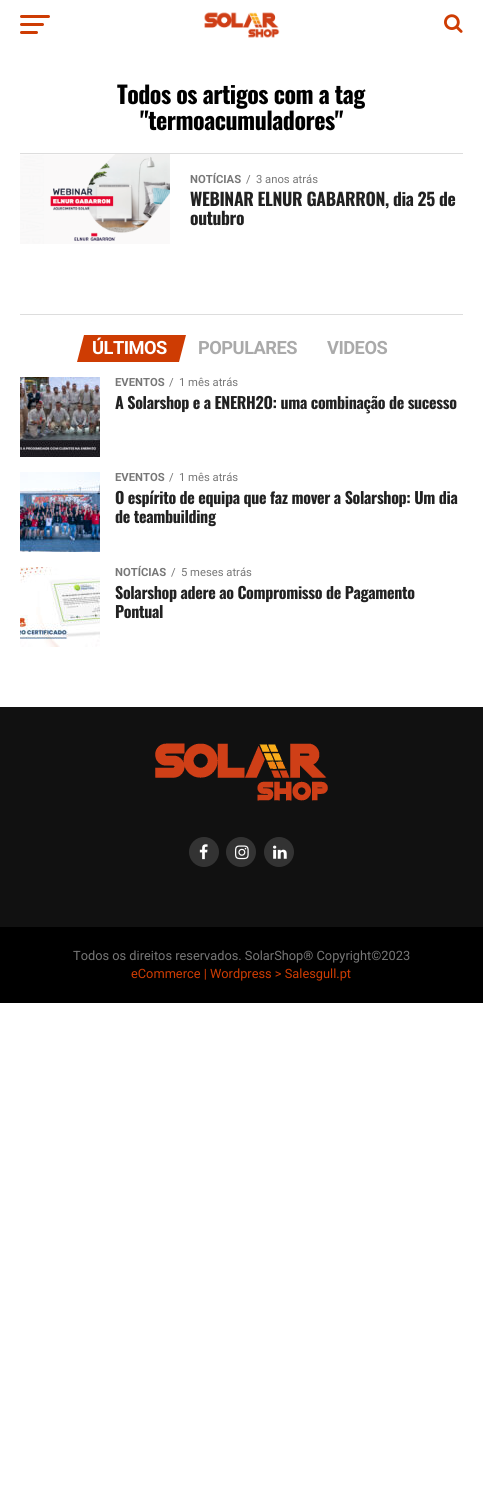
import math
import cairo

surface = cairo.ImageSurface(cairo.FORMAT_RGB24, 483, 1488)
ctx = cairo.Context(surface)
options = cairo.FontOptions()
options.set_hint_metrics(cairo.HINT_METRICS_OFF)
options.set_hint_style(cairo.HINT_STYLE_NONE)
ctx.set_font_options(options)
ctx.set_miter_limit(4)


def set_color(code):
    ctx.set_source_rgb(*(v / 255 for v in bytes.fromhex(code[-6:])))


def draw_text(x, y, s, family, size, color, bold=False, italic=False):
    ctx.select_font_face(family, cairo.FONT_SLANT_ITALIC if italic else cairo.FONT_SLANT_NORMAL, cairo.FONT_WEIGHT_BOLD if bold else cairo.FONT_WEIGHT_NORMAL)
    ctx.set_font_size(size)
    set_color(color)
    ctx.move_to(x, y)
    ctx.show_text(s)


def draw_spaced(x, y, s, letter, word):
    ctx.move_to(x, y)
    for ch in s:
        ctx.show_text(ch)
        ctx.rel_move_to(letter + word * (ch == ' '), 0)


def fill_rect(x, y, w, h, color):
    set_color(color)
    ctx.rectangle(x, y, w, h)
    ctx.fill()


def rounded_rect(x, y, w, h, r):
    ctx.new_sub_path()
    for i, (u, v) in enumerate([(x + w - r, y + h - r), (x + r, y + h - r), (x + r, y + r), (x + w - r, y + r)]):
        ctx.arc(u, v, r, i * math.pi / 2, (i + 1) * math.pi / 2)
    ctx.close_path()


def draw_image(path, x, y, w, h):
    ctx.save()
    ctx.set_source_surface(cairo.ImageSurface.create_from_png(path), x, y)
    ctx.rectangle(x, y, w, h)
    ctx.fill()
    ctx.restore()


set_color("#ffffff")
ctx.paint()
set_color("#ce3c03")
rounded_rect(20, 15, 30, 3, 1.5)
ctx.fill()
rounded_rect(20, 23, 24, 3, 1.5)
ctx.fill()
rounded_rect(20, 31, 18, 3, 1.5)
ctx.fill()
draw_image("assets/img1.png", 204, 12, 76, 26)
draw_image("assets/img2.png", 444, 14, 19, 19)
ctx.select_font_face("Oswald", cairo.FONT_SLANT_NORMAL, cairo.FONT_WEIGHT_BOLD)
ctx.set_font_size(24)
set_color("#000000")
draw_spaced(117, 104, "Todos os artigos com a tag", -0.5, 0)
draw_spaced(140, 130, "\"termoacumuladores\"", -0.5, 0)
fill_rect(20, 153, 443, 1, "#dddddd")
draw_image("assets/img3.png", 20, 154, 150, 90)
draw_text(190, 183, "NOTÍCIAS", "Roboto", 11.25, "#777777", bold=True)
draw_text(246, 183, "/", "Roboto", 11.25, "#777777")
draw_text(256, 183, "3 anos atrás", "Roboto", 11.25, "#777777")
ctx.select_font_face("Oswald", cairo.FONT_SLANT_NORMAL, cairo.FONT_WEIGHT_BOLD)
ctx.set_font_size(17.6)
set_color("#222222")
draw_spaced(190, 206, "WEBINAR ELNUR GABARRON, dia 25 de", -0.35, 0)
draw_spaced(190, 225, "outubro", -0.35, 0)
fill_rect(20, 314, 443, 1, "#dddddd")
set_color("#ce3c03")
ctx.new_path()
ctx.move_to(84, 335)
ctx.line_to(186, 335)
ctx.line_to(179, 362)
ctx.line_to(77, 362)
ctx.close_path()
ctx.fill()
ctx.select_font_face("Roboto", cairo.FONT_SLANT_NORMAL, cairo.FONT_WEIGHT_BOLD)
ctx.set_font_size(18.25)
set_color("#ffffff")
draw_spaced(92, 354, "ÚLTIMOS", -0.5, 0)
set_color("#aaaaaa")
draw_spaced(198, 354, "POPULARES", -0.5, 0)
draw_spaced(327, 354, "VIDEOS", -0.5, 0)
draw_image("assets/img4.png", 20, 377, 80, 80)
draw_text(115, 386, "EVENTOS", "Roboto", 11.25, "#777777", bold=True)
draw_text(169, 386, "/", "Roboto", 11.25, "#777777")
draw_text(179, 386, "1 mês atrás", "Roboto", 11.25, "#777777")
ctx.select_font_face("Oswald", cairo.FONT_SLANT_NORMAL, cairo.FONT_WEIGHT_BOLD)
ctx.set_font_size(16)
set_color("#222222")
draw_spaced(115, 409, "A Solarshop e a ENERH2O: uma combinação de sucesso", -0.32, 0)
draw_image("assets/img5.png", 20, 472, 80, 80)
draw_text(115, 481, "EVENTOS", "Roboto", 11.25, "#777777", bold=True)
draw_text(169, 481, "/", "Roboto", 11.25, "#777777")
draw_text(179, 481, "1 mês atrás", "Roboto", 11.25, "#777777")
ctx.select_font_face("Oswald", cairo.FONT_SLANT_NORMAL, cairo.FONT_WEIGHT_BOLD)
ctx.set_font_size(16)
set_color("#222222")
draw_spaced(115, 504, "O espírito de equipa que faz mover a Solarshop: Um dia", -0.32, 0)
draw_spaced(115, 523, "de teambuilding", -0.32, 0)
draw_image("assets/img6.png", 20, 567, 80, 80)
draw_text(115, 576, "NOTÍCIAS", "Roboto", 11.25, "#777777", bold=True)
draw_text(171, 576, "/", "Roboto", 11.25, "#777777")
draw_text(181, 576, "5 meses atrás", "Roboto", 11.25, "#777777")
ctx.select_font_face("Oswald", cairo.FONT_SLANT_NORMAL, cairo.FONT_WEIGHT_BOLD)
ctx.set_font_size(16)
set_color("#222222")
draw_spaced(115, 599, "Solarshop adere ao Compromisso de Pagamento", -0.32, 0)
draw_spaced(115, 618, "Pontual", -0.32, 0)
fill_rect(0, 707, 483, 220, "#111111")
draw_image("assets/img7.png", 155, 743, 173, 58)
set_color("#333333")
ctx.arc(204, 852, 15, 0, 2 * math.pi)
ctx.fill()
draw_image("assets/img8.png", 199, 844, 9, 16)
ctx.arc(241, 852, 15, 0, 2 * math.pi)
ctx.fill()
draw_image("assets/img9.png", 235, 845, 14, 15)
ctx.arc(279, 852, 15, 0, 2 * math.pi)
ctx.fill()
draw_image("assets/img10.png", 273, 845, 14, 14)
fill_rect(0, 927, 483, 76, "#000000")
draw_text(73, 960, "Todos os direitos reservados. SolarShop® Copyright©2023", "Roboto", 12.8, "#777777")
draw_text(131, 978, "eCommerce | Wordpress > Salesgull.pt", "Roboto", 12.8, "#ce3c03")
surface.write_to_png("output.png")
